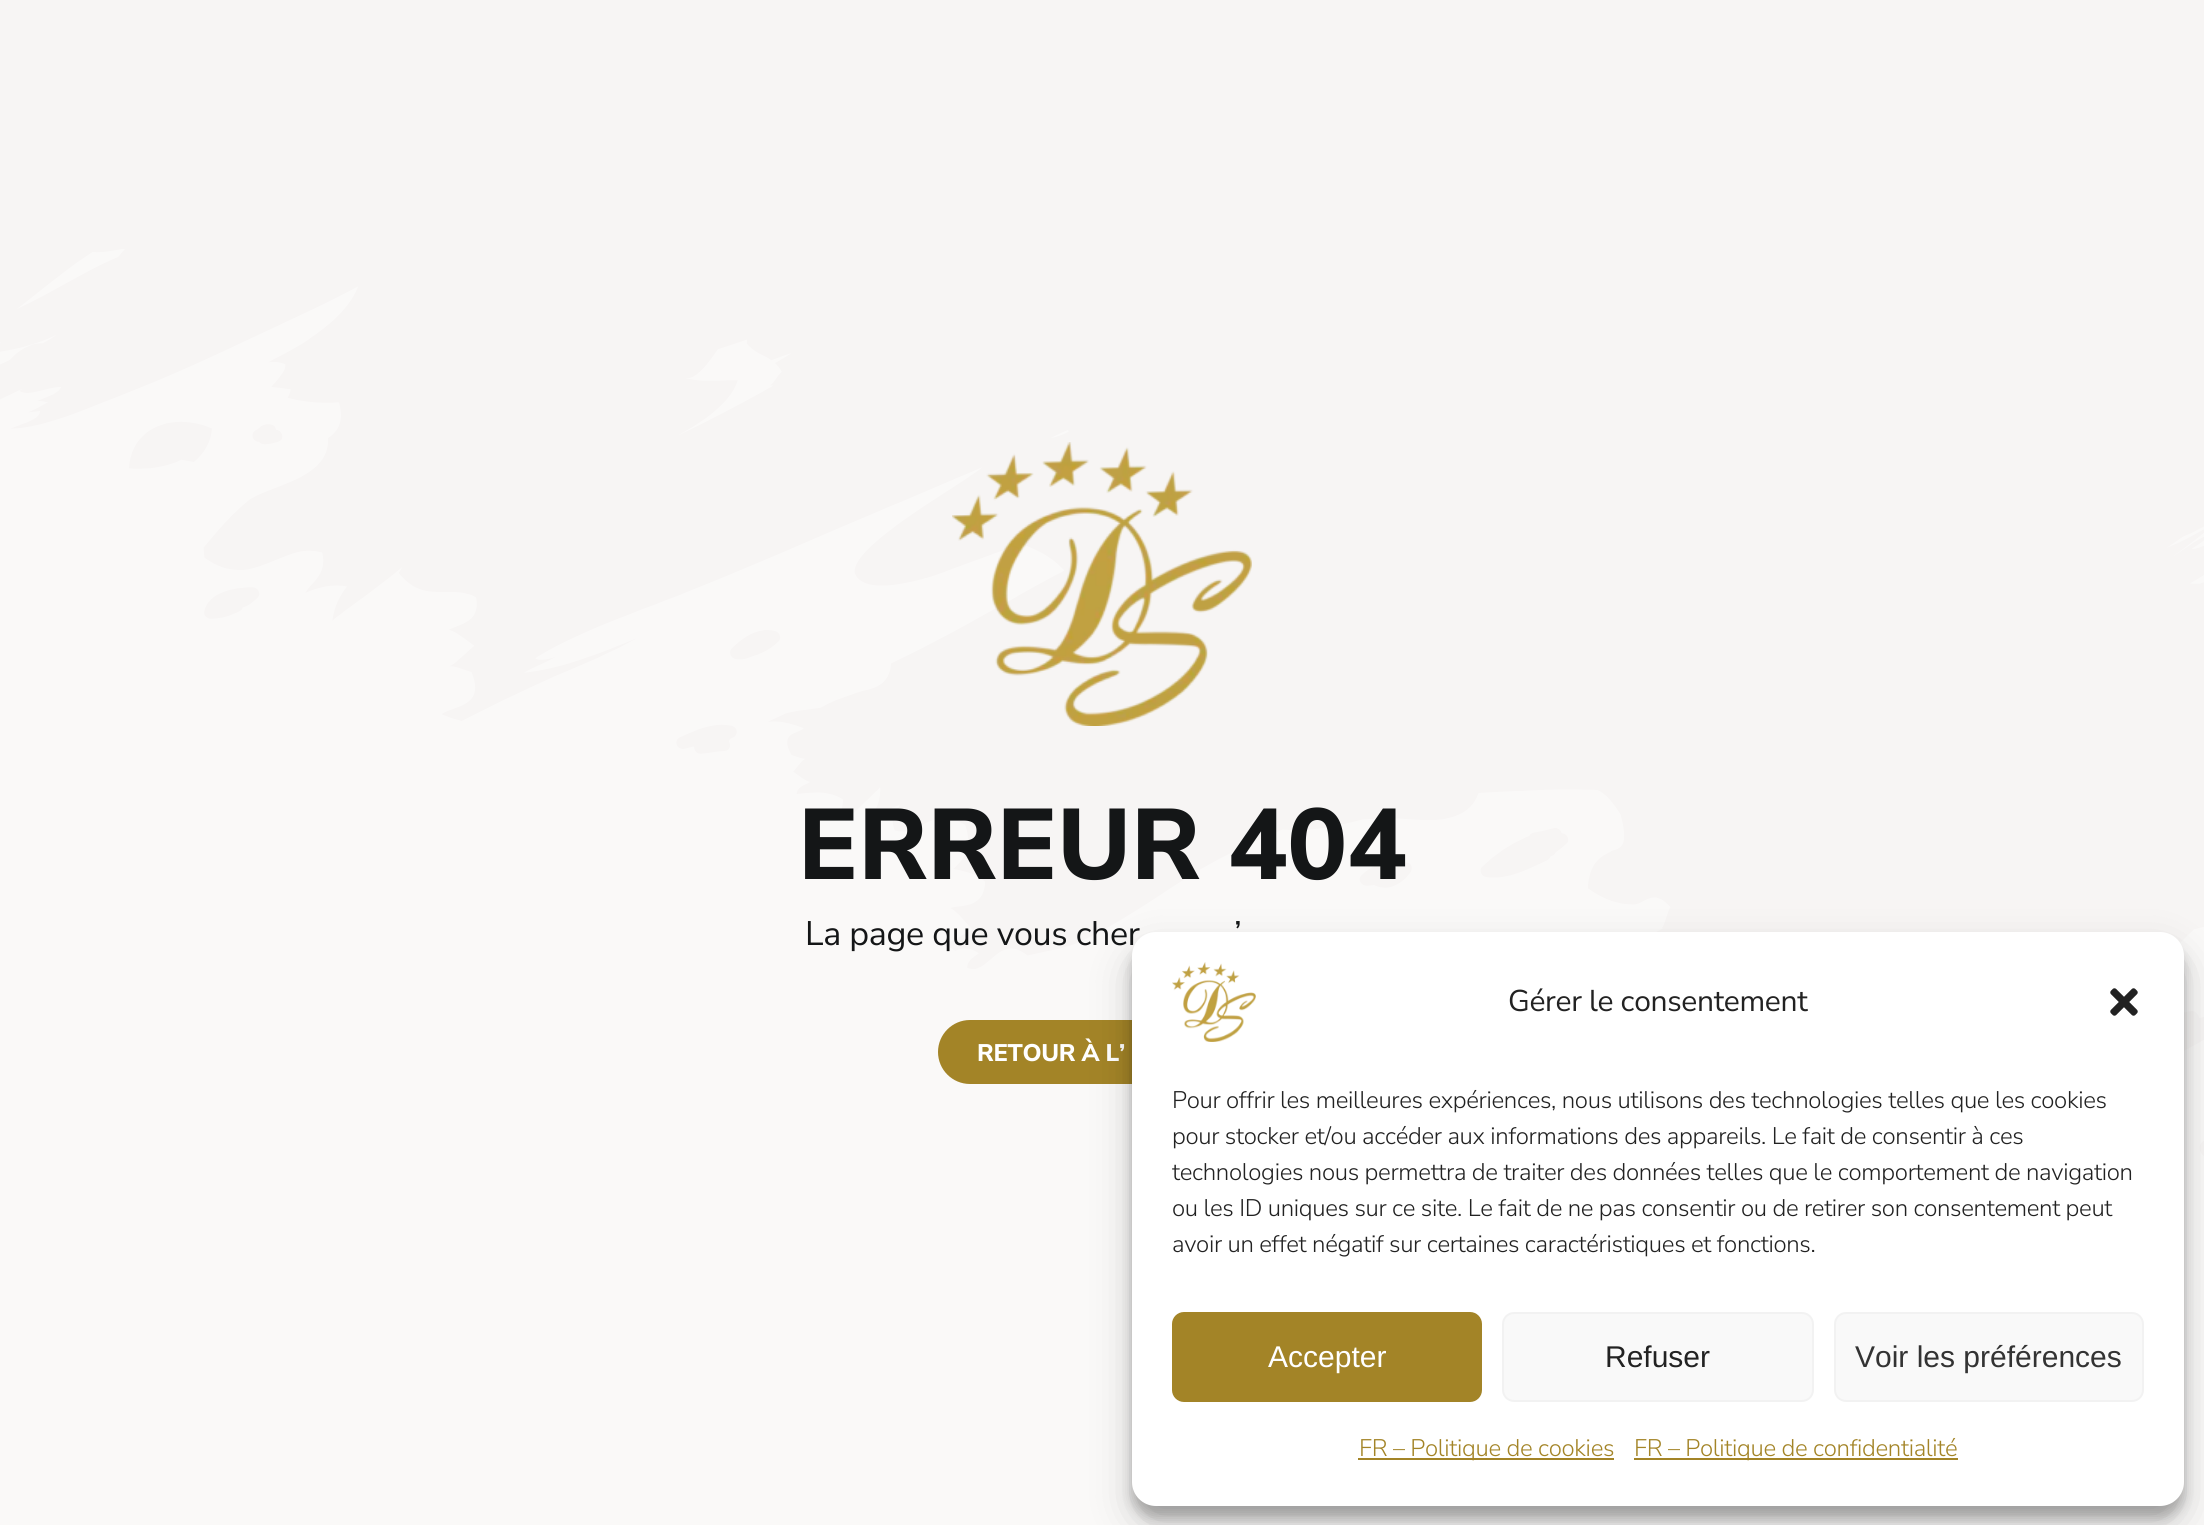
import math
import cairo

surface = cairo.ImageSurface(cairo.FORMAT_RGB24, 2204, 1525)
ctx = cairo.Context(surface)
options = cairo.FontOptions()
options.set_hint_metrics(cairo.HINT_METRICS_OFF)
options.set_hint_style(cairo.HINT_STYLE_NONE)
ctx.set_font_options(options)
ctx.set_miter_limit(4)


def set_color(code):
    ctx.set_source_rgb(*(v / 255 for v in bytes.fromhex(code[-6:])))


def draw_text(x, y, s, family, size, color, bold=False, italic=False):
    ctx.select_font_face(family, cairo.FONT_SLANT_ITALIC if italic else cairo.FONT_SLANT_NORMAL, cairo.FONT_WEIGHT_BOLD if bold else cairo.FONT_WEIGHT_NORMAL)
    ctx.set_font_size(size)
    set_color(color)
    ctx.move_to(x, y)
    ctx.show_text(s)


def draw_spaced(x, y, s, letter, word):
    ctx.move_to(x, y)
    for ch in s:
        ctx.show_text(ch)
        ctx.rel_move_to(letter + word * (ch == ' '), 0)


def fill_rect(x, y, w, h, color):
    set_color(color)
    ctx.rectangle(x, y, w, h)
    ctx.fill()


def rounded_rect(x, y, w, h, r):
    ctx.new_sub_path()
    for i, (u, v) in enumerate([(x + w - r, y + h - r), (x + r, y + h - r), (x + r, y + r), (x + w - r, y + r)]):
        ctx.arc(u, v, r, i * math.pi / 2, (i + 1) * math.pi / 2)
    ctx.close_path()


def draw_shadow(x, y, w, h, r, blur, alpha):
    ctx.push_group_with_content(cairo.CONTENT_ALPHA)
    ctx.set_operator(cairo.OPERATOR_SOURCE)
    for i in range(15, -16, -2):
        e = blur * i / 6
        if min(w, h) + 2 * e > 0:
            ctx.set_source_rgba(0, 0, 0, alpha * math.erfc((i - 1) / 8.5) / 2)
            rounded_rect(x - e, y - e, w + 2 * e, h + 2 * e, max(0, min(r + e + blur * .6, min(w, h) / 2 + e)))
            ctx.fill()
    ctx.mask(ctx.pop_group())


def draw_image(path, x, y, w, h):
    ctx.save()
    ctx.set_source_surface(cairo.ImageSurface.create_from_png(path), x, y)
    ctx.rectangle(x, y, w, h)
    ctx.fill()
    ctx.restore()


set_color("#f7f5f4")
ctx.paint()
draw_image("assets/img1.png", 0, 249, 2204, 1276)
draw_image("assets/img2.png", 952, 442, 300, 284)
ctx.select_font_face("Nunito Sans ExtraBold")
ctx.set_font_size(100)
set_color("#141617")
draw_spaced(798, 879, "ERREUR 404", -0.32, 0)
ctx.select_font_face("Nunito Sans")
ctx.set_font_size(34)
draw_spaced(805, 945, "La page que vous cher", -0.32, 0)
draw_spaced(1234, 945, "’", -0.32, 0)
set_color("#a38427")
rounded_rect(938, 1020, 328, 64, 32)
ctx.fill()
ctx.select_font_face("Nunito Sans ExtraBold")
ctx.set_font_size(24)
set_color("#ffffff")
draw_spaced(977, 1061, "RETOUR À L’", -0.32, 0)
set_color("#000000")
draw_shadow(1132, 944, 1052, 574, 24, 6, 0.23)
draw_shadow(1132, 952, 1052, 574, 24, 20, 0.19)
set_color("#ffffff")
rounded_rect(1132, 932, 1052, 574, 24)
ctx.fill()
draw_image("assets/img3.png", 1172, 962, 84, 80)
ctx.select_font_face("Nunito Sans")
ctx.set_font_size(30)
set_color("#222222")
draw_spaced(1508, 1011, "Gérer le consentement", -0.32, 0)
draw_image("assets/img4.png", 2110, 988, 28, 28)
ctx.select_font_face("Nunito Sans Light")
ctx.set_font_size(24)
draw_spaced(1172, 1108, "Pour offrir les meilleures expériences, nous utilisons des technologies telles que les cookies", -0.32, 0)
draw_spaced(1172, 1144, "pour stocker et/ou accéder aux informations des appareils. Le fait de consentir à ces", -0.32, 0)
draw_spaced(1172, 1180, "technologies nous permettra de traiter des données telles que le comportement de navigation", -0.32, 0)
draw_spaced(1172, 1216, "ou les ID uniques sur ce site. Le fait de ne pas consentir ou de retirer son consentement peut", -0.32, 0)
draw_spaced(1172, 1252, "avoir un effet négatif sur certaines caractéristiques et fonctions.", -0.32, 0)
set_color("#a38427")
rounded_rect(1173, 1313, 308, 88, 11)
ctx.fill_preserve()
ctx.stroke()
draw_text(1268, 1367, "Accepter", "Liberation Sans", 30, "#ffffff")
set_color("#f9f9f9")
rounded_rect(1503, 1313, 310, 88, 11)
ctx.fill_preserve()
set_color("#f2f2f2")
ctx.stroke()
draw_text(1605, 1367, "Refuser", "Liberation Sans", 30, "#222222")
set_color("#f9f9f9")
rounded_rect(1835, 1313, 308, 88, 11)
ctx.fill_preserve()
set_color("#f2f2f2")
ctx.stroke()
draw_text(1855, 1367, "Voir les préférences", "Liberation Sans", 30, "#333333")
fill_rect(1358, 1458, 256, 2, "#a38427")
ctx.select_font_face("Nunito Sans Light")
ctx.set_font_size(24)
draw_spaced(1359, 1456, "FR – Politique de cookies", -0.32, 0)
fill_rect(1634, 1458, 324, 2, "#a38427")
draw_spaced(1634, 1456, "FR – Politique de confidentialité", -0.32, 0)
surface.write_to_png("output.png")
